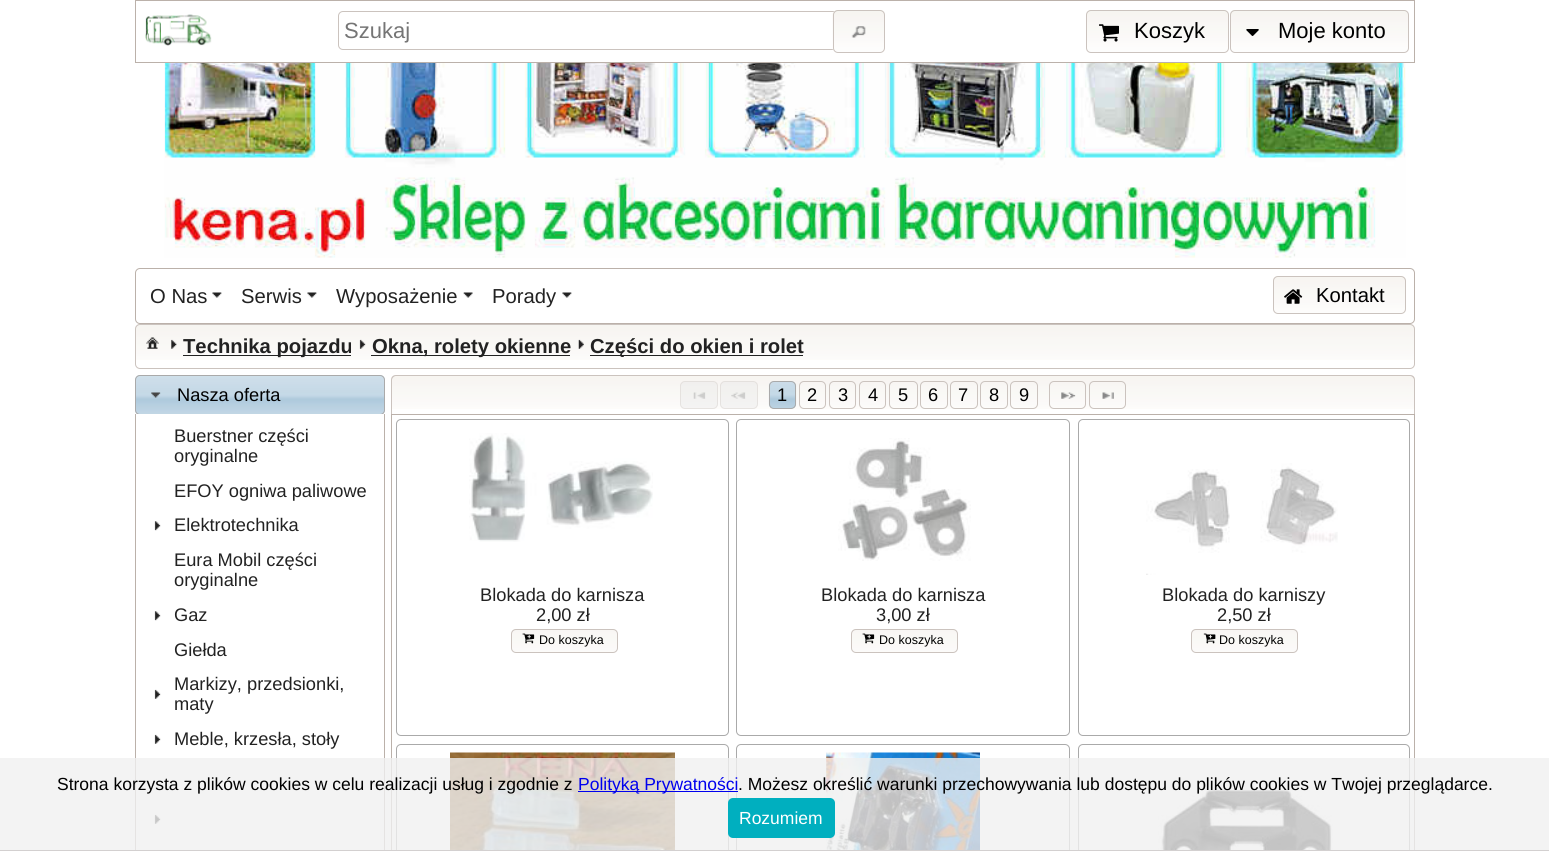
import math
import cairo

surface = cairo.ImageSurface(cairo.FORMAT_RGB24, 1549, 851)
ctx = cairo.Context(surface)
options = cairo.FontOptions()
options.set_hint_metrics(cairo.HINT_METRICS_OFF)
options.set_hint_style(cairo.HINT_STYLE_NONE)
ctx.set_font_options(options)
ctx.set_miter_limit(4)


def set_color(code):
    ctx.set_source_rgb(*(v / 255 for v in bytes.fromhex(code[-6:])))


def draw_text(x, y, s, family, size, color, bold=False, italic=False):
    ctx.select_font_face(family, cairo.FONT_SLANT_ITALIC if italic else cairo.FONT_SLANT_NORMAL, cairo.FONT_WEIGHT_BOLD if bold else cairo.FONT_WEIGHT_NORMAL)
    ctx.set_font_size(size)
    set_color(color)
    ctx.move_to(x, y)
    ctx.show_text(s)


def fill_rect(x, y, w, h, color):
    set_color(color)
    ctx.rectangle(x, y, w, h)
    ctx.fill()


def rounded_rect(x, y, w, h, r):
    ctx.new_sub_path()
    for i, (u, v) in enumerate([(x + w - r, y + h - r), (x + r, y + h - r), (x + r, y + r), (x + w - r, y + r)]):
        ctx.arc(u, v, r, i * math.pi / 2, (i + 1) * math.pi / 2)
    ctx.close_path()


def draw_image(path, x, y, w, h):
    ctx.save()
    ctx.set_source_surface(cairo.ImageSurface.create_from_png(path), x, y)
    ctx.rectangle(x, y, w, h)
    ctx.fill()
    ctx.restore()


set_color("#ffffff")
ctx.paint()
ctx.rectangle(135.5, 0.5, 1279, 62)
set_color("#bbb1aa")
ctx.set_line_width(1)
ctx.stroke()
draw_image("assets/img1.png", 145, 14, 67, 32)
rounded_rect(338.5, 11.5, 501, 38, 4.5)
set_color("#cbc3be")
ctx.stroke()
draw_text(344, 38, "Szukaj", "Liberation Sans", 22, "#757575")
draw_image("assets/img2.png", 832, 10, 53, 43)
rounded_rect(833.5, 10.5, 51, 42, 4.5)
set_color("#cbc3be")
ctx.stroke()
draw_image("assets/img3.png", 851, 26, 15, 12)
draw_image("assets/img4.png", 1086, 10, 143, 43)
rounded_rect(1086.5, 10.5, 142, 42, 4.5)
ctx.stroke()
draw_image("assets/img5.png", 1099, 24, 20, 18)
draw_text(1134, 38, "Koszyk", "Liberation Sans", 22, "#000000")
draw_image("assets/img6.png", 1230, 10, 179, 43)
rounded_rect(1230.5, 10.5, 178, 42, 4.5)
set_color("#cbc3be")
ctx.stroke()
draw_image("assets/img7.png", 1246, 29, 13, 7)
draw_text(1278, 38, "Moje konto", "Liberation Sans", 22, "#000000")
draw_image("assets/img8.png", 164, 63, 1242, 195)
rounded_rect(135.5, 268.5, 1279, 55, 4.5)
set_color("#bbb1aa")
ctx.stroke()
draw_text(150, 303, "O Nas", "Liberation Sans", 20.25, "#222222")
draw_image("assets/img9.png", 212, 292, 10, 6)
draw_text(241, 303, "Serwis", "Liberation Sans", 20.25, "#222222")
draw_image("assets/img9.png", 307, 292, 10, 6)
draw_text(336, 303, "Wyposażenie", "Liberation Sans", 20.25, "#222222")
draw_image("assets/img10.png", 463, 292, 10, 6)
draw_text(492, 303, "Porady", "Liberation Sans", 20.25, "#222222")
draw_image("assets/img9.png", 562, 292, 10, 6)
draw_image("assets/img11.png", 1273, 276, 133, 38)
rounded_rect(1273.5, 276.5, 132, 37, 4.5)
set_color("#cbc3be")
ctx.stroke()
draw_image("assets/img12.png", 1284, 289, 19, 15)
draw_text(1316, 302, "Kontakt", "Liberation Sans", 20.25, "#000000")
draw_image("assets/img13.png", 135, 324, 1280, 36)
rounded_rect(135.5, 324.5, 1279, 44, 4.5)
set_color("#cbc3be")
ctx.stroke()
draw_image("assets/img14.png", 146, 337, 13, 12)
draw_image("assets/img15.png", 171, 339, 6, 10)
fill_rect(183, 355, 168, 1, "#222222")
ctx.save()
rounded_rect(183, 335, 168, 24, 5)
ctx.clip()
draw_text(183, 353, "Technika pojazdu", "Liberation Sans", 20.25, "#222222", bold=True)
ctx.restore()
draw_image("assets/img16.png", 359, 339, 7, 10)
fill_rect(371, 355, 199, 1, "#222222")
draw_text(372, 353, "Okna, rolety okienne", "Liberation Sans", 20.25, "#222222", bold=True)
draw_image("assets/img17.png", 578, 339, 6, 10)
fill_rect(590, 355, 213, 1, "#222222")
draw_text(590, 353, "Części do okien i rolet", "Liberation Sans", 20.25, "#222222", bold=True)
draw_image("assets/img18.png", 135, 375, 250, 39)
rounded_rect(135.5, 375.5, 249, 39, 4.5)
set_color("#aaaaaa")
ctx.stroke()
draw_image("assets/img19.png", 151, 392, 10, 6)
draw_text(177, 401, "Nasza oferta", "Liberation Sans", 18.25, "#000000")
fill_rect(137, 414, 246, 1, "#ffffff")
fill_rect(384, 414, 1, 437, "#bbb1aa")
fill_rect(135, 414, 1, 437, "#bbb1aa")
draw_text(174, 442, "Buerstner części", "Liberation Sans", 18.25, "#222222")
draw_text(174, 462, "oryginalne", "Liberation Sans", 18.25, "#222222")
draw_text(174, 497, "EFOY ogniwa paliwowe", "Liberation Sans", 18.25, "#222222")
draw_image("assets/img20.png", 154, 521, 7, 10)
draw_text(174, 531, "Elektrotechnika", "Liberation Sans", 18.25, "#222222")
draw_text(174, 566, "Eura Mobil części", "Liberation Sans", 18.25, "#222222")
draw_text(174, 586, "oryginalne", "Liberation Sans", 18.25, "#222222")
draw_image("assets/img20.png", 154, 611, 7, 10)
draw_text(174, 621, "Gaz", "Liberation Sans", 18.25, "#222222")
draw_text(174, 656, "Giełda", "Liberation Sans", 18.25, "#222222")
draw_image("assets/img21.png", 154, 689, 7, 10)
draw_text(174, 690, "Markizy, przedsionki,", "Liberation Sans", 18.25, "#222222")
draw_text(174, 710, "maty", "Liberation Sans", 18.25, "#222222")
draw_image("assets/img22.png", 154, 734, 7, 10)
draw_text(174, 745, "Meble, krzesła, stoły", "Liberation Sans", 18.25, "#222222")
draw_image("assets/img21.png", 154, 814, 7, 10)
draw_image("assets/img23.png", 391, 375, 1024, 34)
set_color("#cbc3be")
ctx.set_fill_rule(cairo.FILL_RULE_EVEN_ODD)
ctx.new_path()
ctx.move_to(396, 375)
ctx.line_to(1410, 375)
ctx.curve_to(1413, 375, 1415, 377, 1415, 380)
ctx.line_to(1415, 414)
ctx.line_to(391, 414)
ctx.line_to(391, 380)
ctx.curve_to(391, 377, 393, 375, 396, 375)
ctx.close_path()
ctx.move_to(396, 376)
ctx.line_to(1410, 376)
ctx.curve_to(1412, 376, 1414, 378, 1414, 380)
ctx.line_to(1414, 414)
ctx.line_to(392, 414)
ctx.line_to(392, 380)
ctx.curve_to(392, 378, 394, 376, 396, 376)
ctx.close_path()
ctx.fill()
ctx.set_source_rgba(0.902, 0.902, 0.902, 0.35)
rounded_rect(680, 381, 38, 28, 5)
ctx.fill()
rounded_rect(680.5, 381.5, 37, 27, 4.5)
ctx.set_source_rgba(0.796, 0.765, 0.745, 0.35)
ctx.stroke()
draw_image("assets/img24.png", 693, 392, 13, 7)
ctx.set_source_rgba(0.902, 0.902, 0.902, 0.35)
rounded_rect(720, 381, 38, 28, 5)
ctx.fill()
rounded_rect(720.5, 381.5, 37, 27, 4.5)
ctx.set_source_rgba(0.796, 0.765, 0.745, 0.35)
ctx.stroke()
draw_image("assets/img25.png", 731, 392, 15, 7)
draw_image("assets/img26.png", 768, 381, 29, 28)
rounded_rect(769.5, 381.5, 26, 27, 4.5)
set_color("#aaaaaa")
ctx.stroke()
draw_text(777, 401, "1", "Liberation Sans", 18.25, "#000000")
draw_image("assets/img27.png", 799, 381, 27, 28)
rounded_rect(799.5, 381.5, 26, 27, 4.5)
set_color("#cbc3be")
ctx.stroke()
draw_text(807, 401, "2", "Liberation Sans", 18.25, "#000000")
draw_image("assets/img27.png", 829, 381, 27, 28)
rounded_rect(829.5, 381.5, 26, 27, 4.5)
set_color("#cbc3be")
ctx.stroke()
draw_text(838, 401, "3", "Liberation Sans", 18.25, "#000000")
draw_image("assets/img27.png", 859, 381, 27, 28)
rounded_rect(859.5, 381.5, 26, 27, 4.5)
set_color("#cbc3be")
ctx.stroke()
draw_text(868, 401, "4", "Liberation Sans", 18.25, "#000000")
draw_image("assets/img28.png", 889, 381, 29, 28)
rounded_rect(889.5, 381.5, 28, 27, 4.5)
set_color("#cbc3be")
ctx.stroke()
draw_text(898, 401, "5", "Liberation Sans", 18.25, "#000000")
draw_image("assets/img29.png", 920, 381, 28, 28)
rounded_rect(920.5, 381.5, 27, 27, 4.5)
set_color("#cbc3be")
ctx.stroke()
draw_text(928, 401, "6", "Liberation Sans", 18.25, "#000000")
draw_image("assets/img30.png", 950, 381, 28, 28)
rounded_rect(950.5, 381.5, 27, 27, 4.5)
set_color("#cbc3be")
ctx.stroke()
draw_text(958, 401, "7", "Liberation Sans", 18.25, "#000000")
draw_image("assets/img29.png", 980, 381, 28, 28)
rounded_rect(980.5, 381.5, 27, 27, 4.5)
set_color("#cbc3be")
ctx.stroke()
draw_text(989, 401, "8", "Liberation Sans", 18.25, "#000000")
draw_image("assets/img30.png", 1010, 381, 28, 28)
rounded_rect(1010.5, 381.5, 27, 27, 4.5)
set_color("#cbc3be")
ctx.stroke()
draw_text(1019, 401, "9", "Liberation Sans", 18.25, "#000000")
draw_image("assets/img31.png", 1049, 381, 37, 28)
rounded_rect(1049.5, 381.5, 36, 27, 4.5)
set_color("#cbc3be")
ctx.stroke()
draw_image("assets/img32.png", 1061, 392, 15, 7)
draw_image("assets/img33.png", 1089, 381, 37, 28)
rounded_rect(1089.5, 381.5, 36, 27, 4.5)
ctx.stroke()
draw_image("assets/img34.png", 1102, 392, 12, 7)
ctx.rectangle(391.5, 414.5, 1023, 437)
set_color("#bbb1aa")
ctx.stroke()
rounded_rect(396.5, 419.5, 332, 316, 4.5)
set_color("#aaaaaa")
ctx.stroke()
draw_image("assets/img35.png", 469, 433, 184, 109)
draw_text(480, 601, "Blokada do karnisza", "Liberation Sans", 18.25, "#222222")
draw_text(536, 621, "2,00 zł", "Liberation Sans", 18.25, "#222222")
draw_image("assets/img36.png", 511, 629, 107, 24)
rounded_rect(511.5, 629.5, 106, 23, 4.5)
set_color("#cbc3be")
ctx.stroke()
draw_image("assets/img37.png", 522, 633, 13, 11)
draw_text(539, 644, "Do koszyka", "Liberation Sans", 12.5, "#000000")
rounded_rect(736.5, 419.5, 333, 316, 4.5)
set_color("#aaaaaa")
ctx.stroke()
draw_image("assets/img38.png", 838, 438, 133, 123)
draw_text(821, 601, "Blokada do karnisza", "Liberation Sans", 18.25, "#222222")
draw_text(876, 621, "3,00 zł", "Liberation Sans", 18.25, "#222222")
draw_image("assets/img36.png", 851, 629, 107, 24)
rounded_rect(851.5, 629.5, 106, 23, 4.5)
set_color("#cbc3be")
ctx.stroke()
draw_image("assets/img37.png", 862, 633, 13, 11)
draw_text(879, 644, "Do koszyka", "Liberation Sans", 12.5, "#000000")
rounded_rect(1078.5, 419.5, 331, 316, 4.5)
set_color("#aaaaaa")
ctx.stroke()
draw_image("assets/img39.png", 1146, 463, 192, 112)
draw_text(1162, 601, "Blokada do karniszy", "Liberation Sans", 18.25, "#222222")
draw_text(1217, 621, "2,50 zł", "Liberation Sans", 18.25, "#222222")
draw_image("assets/img36.png", 1191, 629, 107, 24)
rounded_rect(1191.5, 629.5, 106, 23, 4.5)
set_color("#cbc3be")
ctx.stroke()
draw_image("assets/img40.png", 1203, 633, 13, 11)
draw_text(1219, 644, "Do koszyka", "Liberation Sans", 12.5, "#000000")
rounded_rect(396.5, 744.5, 332, 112, 4.5)
set_color("#aaaaaa")
ctx.stroke()
draw_image("assets/img41.png", 450, 752, 225, 98)
rounded_rect(736.5, 744.5, 333, 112, 4.5)
ctx.stroke()
draw_image("assets/img42.png", 826, 752, 154, 98)
rounded_rect(1078.5, 744.5, 331, 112, 4.5)
ctx.stroke()
draw_image("assets/img43.png", 1158, 784, 175, 66)
ctx.set_source_rgba(0.941, 0.941, 0.941, 0.8)
ctx.rectangle(0, 758, 1549, 92)
ctx.fill()
fill_rect(0, 850, 1549, 1, "#d3d0d0")
draw_text(57, 790, "Strona korzysta z plików cookies w celu realizacji usług i zgodnie z", "Liberation Sans", 17.5, "#000000")
fill_rect(578, 791, 160, 1, "#0000ee")
draw_text(578, 790, "Polityką Prywatności", "Liberation Sans", 17.5, "#0000ee")
draw_text(738, 790, ". Możesz określić warunki przechowywania lub dostępu do plików cookies w Twojej przeglądarce.", "Liberation Sans", 17.5, "#000000")
set_color("#00afbf")
rounded_rect(728, 798, 107, 40, 5)
ctx.fill()
draw_text(739, 824, "Rozumiem", "Liberation Sans", 17.5, "#ffffff")
surface.write_to_png("output.png")
